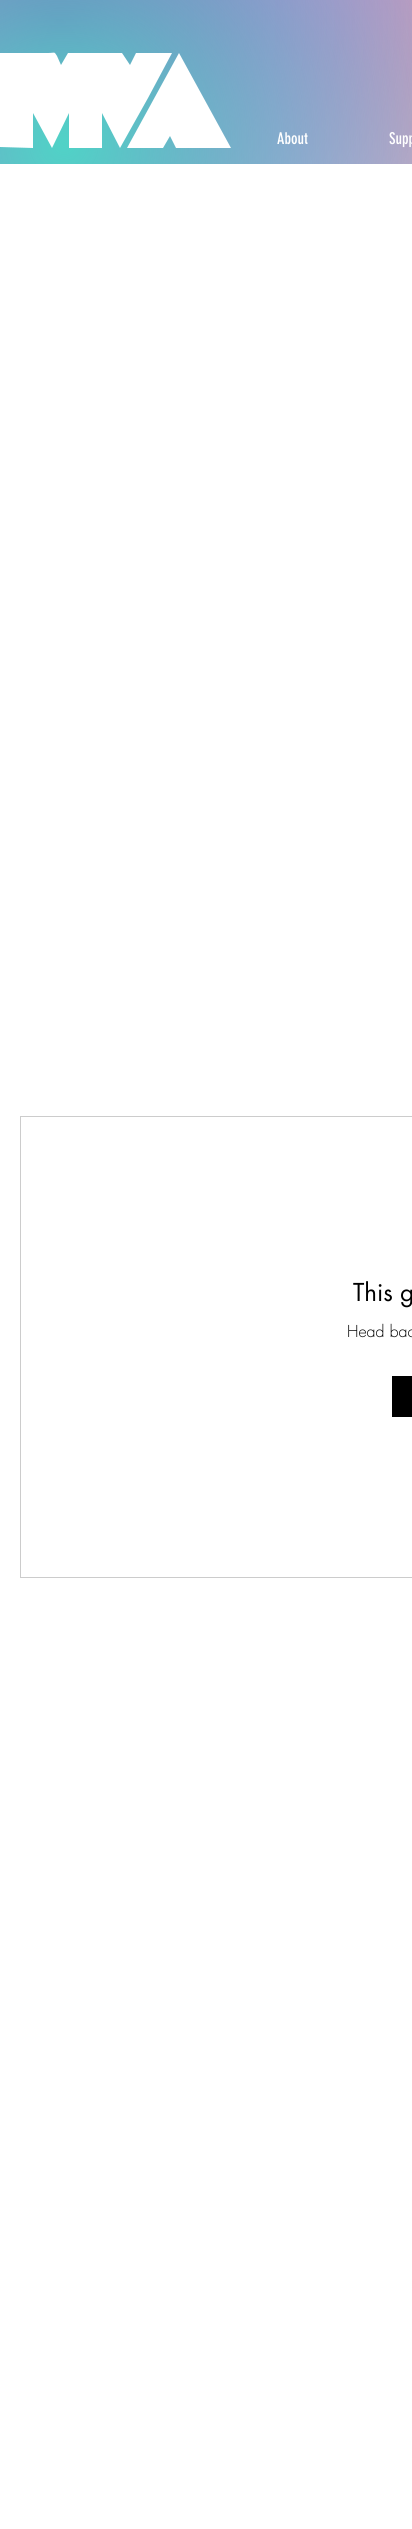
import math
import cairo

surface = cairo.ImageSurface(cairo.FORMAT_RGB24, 412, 2529)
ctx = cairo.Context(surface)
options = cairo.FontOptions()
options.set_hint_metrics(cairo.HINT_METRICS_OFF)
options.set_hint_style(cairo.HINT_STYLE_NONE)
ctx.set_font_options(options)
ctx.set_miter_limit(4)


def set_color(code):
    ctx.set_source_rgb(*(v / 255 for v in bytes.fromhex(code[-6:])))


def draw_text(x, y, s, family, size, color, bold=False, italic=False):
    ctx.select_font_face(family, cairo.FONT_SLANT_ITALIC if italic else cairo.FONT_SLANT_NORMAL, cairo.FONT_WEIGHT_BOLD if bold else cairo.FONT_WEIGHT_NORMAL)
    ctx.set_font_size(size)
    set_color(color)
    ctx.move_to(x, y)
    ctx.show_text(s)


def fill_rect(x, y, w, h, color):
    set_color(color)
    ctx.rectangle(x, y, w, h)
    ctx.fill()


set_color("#ffffff")
ctx.paint()
gradient = cairo.RadialGradient(918, 19, 0, 918, 19, 930)
gradient.add_color_stop_rgba(0, 0.933, 0.502, 0.027, 1)
gradient.add_color_stop_rgba(0.7, 1, 1, 1, 1)
ctx.set_source(gradient)
ctx.rectangle(274, 0, 138, 164)
ctx.fill()
gradient = cairo.RadialGradient(60, 21, 0, 60, 21, 931)
gradient.add_color_stop_rgba(0, 0.592, 0.173, 0.714, 1)
gradient.add_color_stop_rgba(0.7, 0.592, 0.173, 0.714, 0)
ctx.set_source(gradient)
ctx.rectangle(0, 0, 412, 164)
ctx.fill()
gradient = cairo.RadialGradient(64, 144, 0, 64, 144, 928)
gradient.add_color_stop_rgba(0, 0.31, 0.831, 0.78, 0.99)
gradient.add_color_stop_rgba(0.5, 0.31, 0.831, 0.78, 0)
ctx.set_source(gradient)
ctx.rectangle(0, 0, 412, 164)
ctx.fill()
set_color("#ffffff")
ctx.new_path()
ctx.move_to(179, 53)
ctx.line_to(127, 148)
ctx.line_to(163, 148)
ctx.line_to(170, 136)
ctx.line_to(176, 148)
ctx.line_to(231, 148)
ctx.close_path()
ctx.fill()
ctx.new_path()
ctx.move_to(148, 98)
ctx.line_to(172, 53)
ctx.line_to(136, 53)
ctx.line_to(130, 65)
ctx.line_to(122, 53)
ctx.line_to(68, 53)
ctx.line_to(61, 65)
ctx.line_to(57, 56)
ctx.curve_to(54, 51, 55, 53, 48, 53)
ctx.line_to(0, 53)
ctx.line_to(0, 147)
ctx.line_to(33, 148)
ctx.line_to(33, 113)
ctx.line_to(52, 148)
ctx.line_to(69, 113)
ctx.line_to(69, 148)
ctx.line_to(102, 148)
ctx.line_to(102, 113)
ctx.line_to(120, 148)
ctx.close_path()
ctx.fill()
draw_text(277, 144, "About", "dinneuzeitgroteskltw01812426", 16, "#ffffff")
draw_text(389, 144, "Supp", "dinneuzeitgroteskltw01812426", 16, "#ffffff")
ctx.rectangle(20.5, 1116.5, 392, 461)
set_color("#cccccc")
ctx.set_line_width(1)
ctx.stroke()
draw_text(353, 1301, "This g", "futura", 24, "#000000")
draw_text(347, 1337, "Head bac", "futura Light", 16, "#000000")
fill_rect(392, 1376, 20, 41, "#000000")
surface.write_to_png("output.png")
